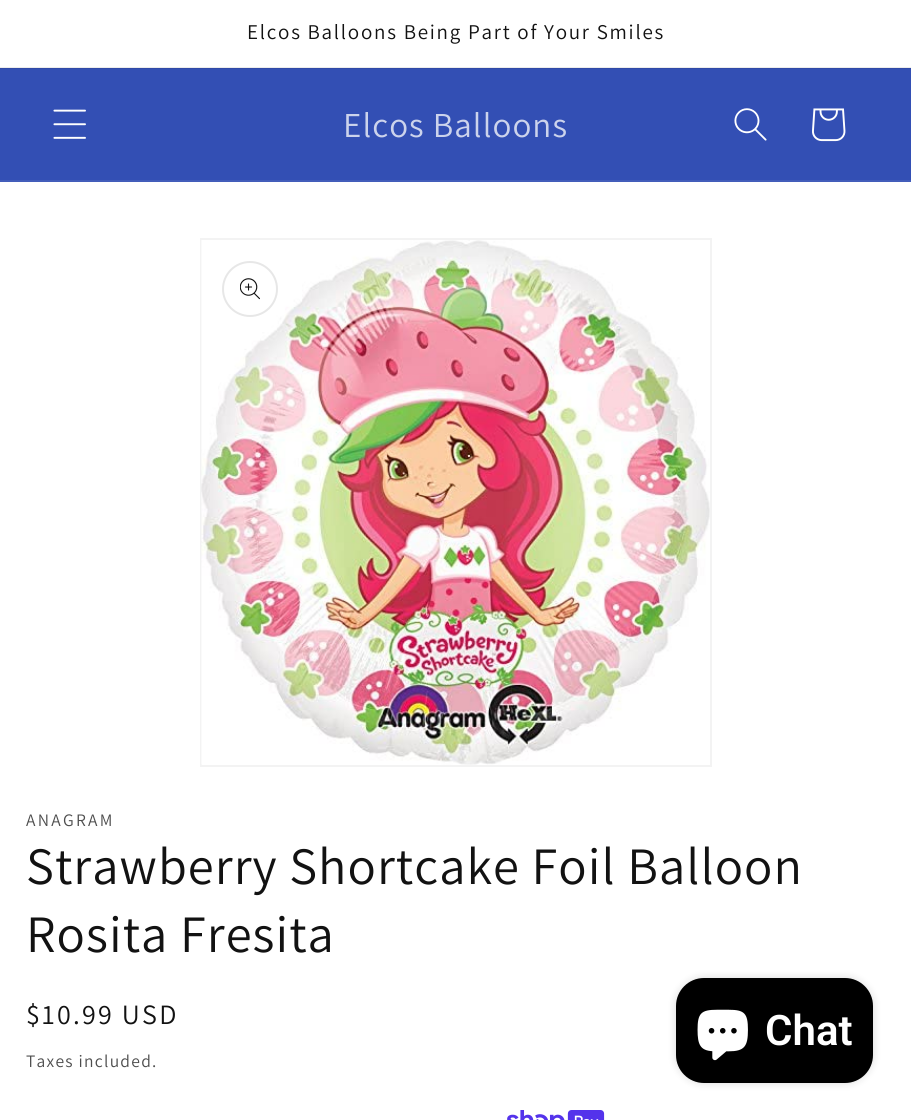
import math
import cairo

surface = cairo.ImageSurface(cairo.FORMAT_RGB24, 911, 1120)
ctx = cairo.Context(surface)
options = cairo.FontOptions()
options.set_hint_metrics(cairo.HINT_METRICS_OFF)
options.set_hint_style(cairo.HINT_STYLE_NONE)
ctx.set_font_options(options)
ctx.set_miter_limit(4)


def set_color(code):
    ctx.set_source_rgb(*(v / 255 for v in bytes.fromhex(code[-6:])))


def draw_text(x, y, s, family, size, color, bold=False, italic=False):
    ctx.select_font_face(family, cairo.FONT_SLANT_ITALIC if italic else cairo.FONT_SLANT_NORMAL, cairo.FONT_WEIGHT_BOLD if bold else cairo.FONT_WEIGHT_NORMAL)
    ctx.set_font_size(size)
    set_color(color)
    ctx.move_to(x, y)
    ctx.show_text(s)


def draw_spaced(x, y, s, letter, word):
    ctx.move_to(x, y)
    for ch in s:
        ctx.show_text(ch)
        ctx.rel_move_to(letter + word * (ch == ' '), 0)


def fill_rect(x, y, w, h, color):
    set_color(color)
    ctx.rectangle(x, y, w, h)
    ctx.fill()


def rounded_rect(x, y, w, h, r):
    ctx.new_sub_path()
    for i, (u, v) in enumerate([(x + w - r, y + h - r), (x + r, y + h - r), (x + r, y + r), (x + w - r, y + r)]):
        ctx.arc(u, v, r, i * math.pi / 2, (i + 1) * math.pi / 2)
    ctx.close_path()


def draw_shadow(x, y, w, h, r, blur, alpha):
    ctx.push_group_with_content(cairo.CONTENT_ALPHA)
    ctx.set_operator(cairo.OPERATOR_SOURCE)
    for i in range(15, -16, -2):
        e = blur * i / 6
        if min(w, h) + 2 * e > 0:
            ctx.set_source_rgba(0, 0, 0, alpha * math.erfc((i - 1) / 8.5) / 2)
            rounded_rect(x - e, y - e, w + 2 * e, h + 2 * e, max(0, min(r + e + blur * .6, min(w, h) / 2 + e)))
            ctx.fill()
    ctx.mask(ctx.pop_group())


def draw_image(path, x, y, w, h):
    ctx.save()
    ctx.set_source_surface(cairo.ImageSurface.create_from_png(path), x, y)
    ctx.rectangle(x, y, w, h)
    ctx.fill()
    ctx.restore()


set_color("#ffffff")
ctx.paint()
fill_rect(0, 67, 911, 1, "#ececec")
ctx.select_font_face("Assistant")
ctx.set_font_size(21)
set_color("#121212")
draw_spaced(247, 39, "Elcos Balloons Being Part of Your Smiles", 1.75, 0)
fill_rect(0, 69, 911, 111, "#334fb4")
fill_rect(0, 68, 911, 1, "#304aa7")
fill_rect(0, 180, 911, 2, "#435dba")
draw_image("assets/img1.png", 53, 109, 33, 30)
ctx.set_font_size(35)
set_color("#ccd3ec")
draw_spaced(343, 137, "Elcos Balloons", 1.05, 0)
draw_image("assets/img2.png", 734, 108, 33, 33)
draw_image("assets/img3.png", 812, 108, 34, 34)
ctx.rectangle(201, 239, 510, 527)
set_color("#f3f3f3")
ctx.stroke()
draw_image("assets/img4.png", 201, 240, 509, 525)
ctx.arc(250, 289, 27, 0, 2 * math.pi)
set_color("#e7e7e7")
ctx.stroke()
draw_image("assets/img5.png", 240, 278, 20, 22)
ctx.set_font_size(17.5)
set_color("#4d4d4d")
draw_spaced(26, 826, "ANAGRAM", 2.25, 0)
ctx.set_font_size(52.5)
set_color("#121212")
draw_spaced(26, 884, "Strawberry Shortcake Foil Balloon", 1.05, 0)
draw_spaced(26, 952, "Rosita Fresita", 1.05, 0)
ctx.set_font_size(28)
draw_spaced(26, 1024, "$10.99 USD", 2.25, 0)
ctx.set_font_size(17.5)
set_color("#4d4d4d")
draw_spaced(26, 1067, "Taxes included.", 1.25, 0)
draw_image("assets/img6.png", 507, 1110, 98, 10)
set_color("#000000")
draw_shadow(676, 978, 197, 105, 28, 4.5, 0.15)
set_color("#000000")
rounded_rect(676, 978, 197, 105, 28)
ctx.fill()
draw_image("assets/img7.png", 697, 1009, 51, 52)
draw_text(765, 1045, "Chat", "Roboto SemiBold", 42, "#ffffff")
surface.write_to_png("output.png")
